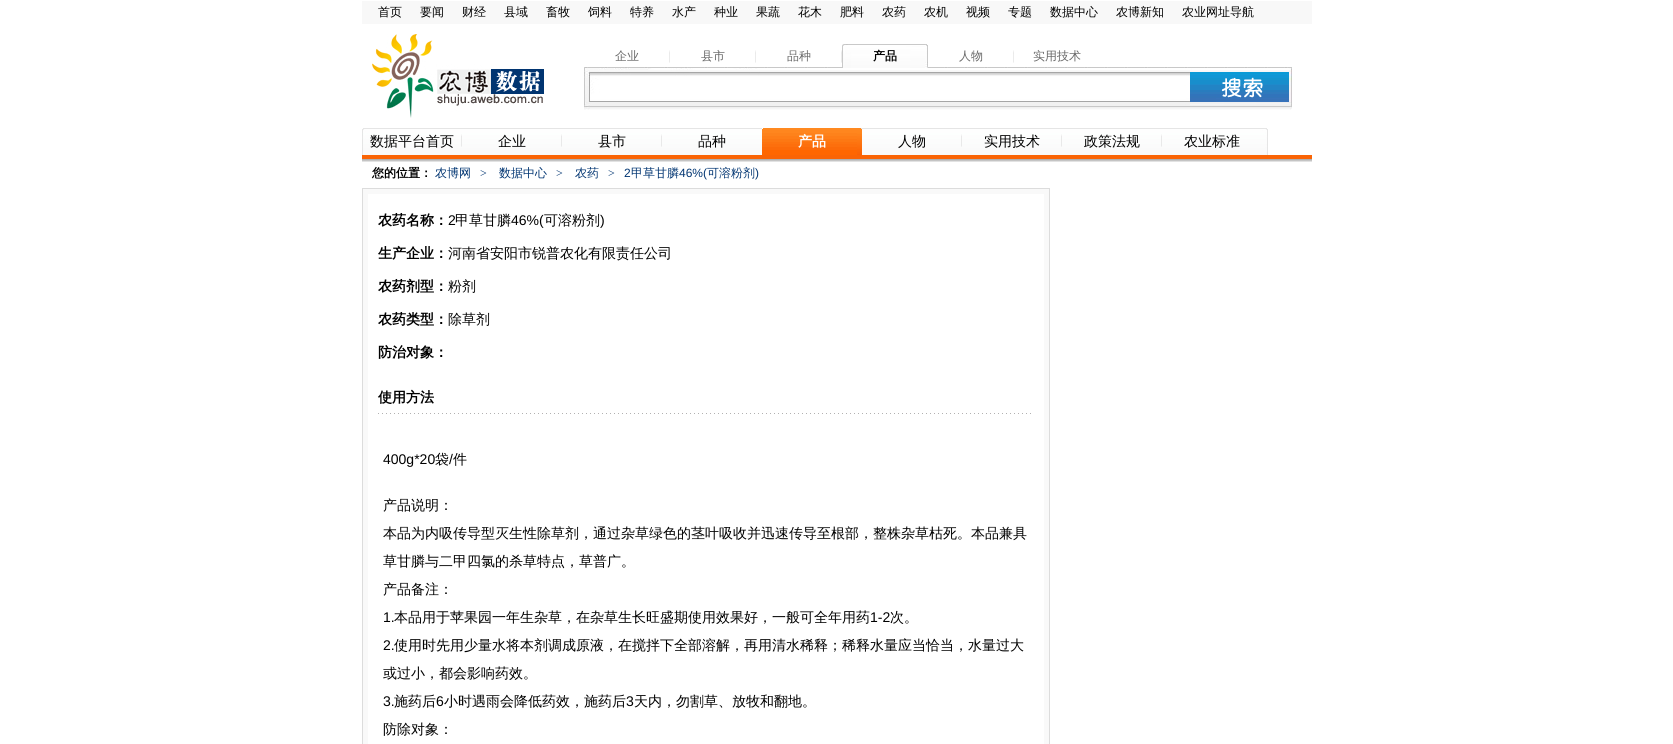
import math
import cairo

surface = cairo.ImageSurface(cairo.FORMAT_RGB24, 1673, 744)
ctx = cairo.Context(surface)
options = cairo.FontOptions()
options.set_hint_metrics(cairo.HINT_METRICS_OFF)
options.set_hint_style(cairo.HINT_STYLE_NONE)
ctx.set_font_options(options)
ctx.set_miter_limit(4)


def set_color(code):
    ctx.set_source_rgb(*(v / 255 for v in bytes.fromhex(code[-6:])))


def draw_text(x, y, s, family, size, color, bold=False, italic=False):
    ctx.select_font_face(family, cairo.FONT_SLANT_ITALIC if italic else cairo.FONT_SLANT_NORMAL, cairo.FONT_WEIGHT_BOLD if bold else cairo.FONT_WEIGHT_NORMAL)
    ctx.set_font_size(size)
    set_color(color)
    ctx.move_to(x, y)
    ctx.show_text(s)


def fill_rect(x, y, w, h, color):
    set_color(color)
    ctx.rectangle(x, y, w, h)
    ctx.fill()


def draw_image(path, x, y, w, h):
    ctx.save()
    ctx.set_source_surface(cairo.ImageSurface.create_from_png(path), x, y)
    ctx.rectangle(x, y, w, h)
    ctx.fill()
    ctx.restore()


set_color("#ffffff")
ctx.paint()
fill_rect(362, 1, 950, 23, "#f8f8f8")
draw_text(378, 16, "首页", "WenQuanYi Zen Hei Medium", 12, "#000000")
draw_text(420, 16, "要闻", "WenQuanYi Zen Hei Medium", 12, "#000000")
draw_text(462, 16, "财经", "WenQuanYi Zen Hei Medium", 12, "#000000")
draw_text(504, 16, "县域", "WenQuanYi Zen Hei Medium", 12, "#000000")
draw_text(546, 16, "畜牧", "WenQuanYi Zen Hei Medium", 12, "#000000")
draw_text(588, 16, "饲料", "WenQuanYi Zen Hei Medium", 12, "#000000")
draw_text(630, 16, "特养", "WenQuanYi Zen Hei Medium", 12, "#000000")
draw_text(672, 16, "水产", "WenQuanYi Zen Hei Medium", 12, "#000000")
draw_text(714, 16, "种业", "WenQuanYi Zen Hei Medium", 12, "#000000")
draw_text(756, 16, "果蔬", "WenQuanYi Zen Hei Medium", 12, "#000000")
draw_text(798, 16, "花木", "WenQuanYi Zen Hei Medium", 12, "#000000")
draw_text(840, 16, "肥料", "WenQuanYi Zen Hei Medium", 12, "#000000")
draw_text(882, 16, "农药", "WenQuanYi Zen Hei Medium", 12, "#000000")
draw_text(924, 16, "农机", "WenQuanYi Zen Hei Medium", 12, "#000000")
draw_text(966, 16, "视频", "WenQuanYi Zen Hei Medium", 12, "#000000")
draw_text(1008, 16, "专题", "WenQuanYi Zen Hei Medium", 12, "#000000")
draw_text(1050, 16, "数据中心", "WenQuanYi Zen Hei Medium", 12, "#000000")
draw_text(1116, 16, "农博新知", "WenQuanYi Zen Hei Medium", 12, "#000000")
draw_text(1182, 16, "农业网址导航", "WenQuanYi Zen Hei Medium", 12, "#000000")
draw_image("assets/img1.png", 372, 34, 172, 84)
draw_image("assets/img2.png", 584, 67, 708, 1)
draw_image("assets/img3.png", 669, 50, 1, 13)
draw_text(615, 60, "企业", "WenQuanYi Zen Hei Medium", 12, "#686868")
draw_image("assets/img3.png", 755, 50, 1, 13)
draw_text(701, 60, "县市", "WenQuanYi Zen Hei Medium", 12, "#686868")
draw_image("assets/img3.png", 841, 50, 1, 13)
draw_text(787, 60, "品种", "WenQuanYi Zen Hei Medium", 12, "#686868")
draw_image("assets/img4.png", 842, 44, 83, 24)
draw_image("assets/img5.png", 925, 44, 3, 24)
draw_text(873, 60, "产品", "WenQuanYi Zen Hei", 12, "#000000", bold=True)
draw_image("assets/img3.png", 1013, 50, 1, 13)
draw_text(959, 60, "人物", "WenQuanYi Zen Hei Medium", 12, "#686868")
draw_text(1033, 60, "实用技术", "WenQuanYi Zen Hei Medium", 12, "#686868")
draw_image("assets/img6.png", 584, 68, 708, 42)
draw_image("assets/img7.png", 1190, 72, 99, 30)
draw_image("assets/img8.png", 362, 155, 950, 7)
draw_image("assets/img9.png", 362, 128, 900, 27)
draw_image("assets/img10.png", 461, 134, 1, 13)
draw_text(370, 146, "数据平台首页", "WenQuanYi Zen Hei Medium", 14, "#000000")
draw_image("assets/img10.png", 561, 134, 1, 13)
draw_text(498, 146, "企业", "WenQuanYi Zen Hei Medium", 14, "#000000")
draw_image("assets/img10.png", 661, 134, 1, 13)
draw_text(598, 146, "县市", "WenQuanYi Zen Hei Medium", 14, "#000000")
draw_text(698, 146, "品种", "WenQuanYi Zen Hei Medium", 14, "#000000")
draw_image("assets/img11.png", 762, 128, 95, 27)
draw_image("assets/img12.png", 857, 128, 5, 27)
draw_text(798, 146, "产品", "WenQuanYi Zen Hei", 14, "#ffffff", bold=True)
draw_image("assets/img10.png", 961, 134, 1, 13)
draw_text(898, 146, "人物", "WenQuanYi Zen Hei Medium", 14, "#000000")
draw_image("assets/img10.png", 1061, 134, 1, 13)
draw_text(984, 146, "实用技术", "WenQuanYi Zen Hei Medium", 14, "#000000")
draw_image("assets/img10.png", 1161, 134, 1, 13)
draw_text(1084, 146, "政策法规", "WenQuanYi Zen Hei Medium", 14, "#000000")
draw_text(1184, 146, "农业标准", "WenQuanYi Zen Hei Medium", 14, "#000000")
draw_image("assets/img13.png", 1262, 128, 6, 27)
draw_text(372, 177, "您的位置：", "WenQuanYi Zen Hei", 12, "#000000", bold=True)
draw_text(435, 177, "农博网", "WenQuanYi Zen Hei Medium", 12, "#013572")
draw_text(480, 177, ">", "Liberation Serif", 12, "#013572")
draw_text(499, 177, "数据中心", "WenQuanYi Zen Hei Medium", 12, "#013572")
draw_text(556, 177, ">", "Liberation Serif", 12, "#013572")
draw_text(575, 177, "农药", "WenQuanYi Zen Hei Medium", 12, "#013572")
draw_text(608, 177, ">", "Liberation Serif", 12, "#013572")
draw_text(624, 177, "2", "Liberation Sans", 12, "#013572")
draw_text(631, 177, "甲草甘膦", "WenQuanYi Zen Hei Medium", 12, "#013572")
draw_text(679, 177, "46%(", "Liberation Sans", 12, "#013572")
draw_text(707, 177, "可溶粉剂", "WenQuanYi Zen Hei Medium", 12, "#013572")
draw_text(755, 177, ")", "Liberation Sans", 12, "#013572")
set_color("#f9f9f9")
ctx.rectangle(362.5, 188.5, 687, 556)
ctx.fill_preserve()
set_color("#dcdcdc")
ctx.set_line_width(1)
ctx.stroke()
fill_rect(368, 194, 676, 550, "#ffffff")
draw_text(378, 225, "农药名称：", "WenQuanYi Zen Hei", 14, "#000000", bold=True)
draw_text(448, 225, "2", "Liberation Sans", 14, "#000000")
draw_text(455, 225, "甲草甘膦", "WenQuanYi Zen Hei Medium", 14, "#000000")
draw_text(511, 225, "46%(", "Liberation Sans", 14, "#000000")
draw_text(544, 225, "可溶粉剂", "WenQuanYi Zen Hei Medium", 14, "#000000")
draw_text(600, 225, ")", "Liberation Sans", 14, "#000000")
draw_text(378, 258, "生产企业：", "WenQuanYi Zen Hei", 14, "#000000", bold=True)
draw_text(448, 258, "河南省安阳市锐普农化有限责任公司", "WenQuanYi Zen Hei Medium", 14, "#000000")
draw_text(378, 291, "农药剂型：", "WenQuanYi Zen Hei", 14, "#000000", bold=True)
draw_text(448, 291, "粉剂", "WenQuanYi Zen Hei Medium", 14, "#000000")
draw_text(378, 324, "农药类型：", "WenQuanYi Zen Hei", 14, "#000000", bold=True)
draw_text(448, 324, "除草剂", "WenQuanYi Zen Hei Medium", 14, "#000000")
draw_text(378, 357, "防治对象：", "WenQuanYi Zen Hei", 14, "#000000", bold=True)
draw_image("assets/img14.png", 378, 413, 653, 1)
draw_text(378, 402, "使用方法", "WenQuanYi Zen Hei", 14, "#000000", bold=True)
draw_text(383, 464, "400g*20", "Liberation Sans", 14, "#000000")
draw_text(435, 464, "袋", "WenQuanYi Zen Hei Medium", 14, "#000000")
draw_text(449, 464, "/", "Liberation Sans", 14, "#000000")
draw_text(453, 464, "件", "WenQuanYi Zen Hei Medium", 14, "#000000")
draw_text(383, 510, "产品说明：", "WenQuanYi Zen Hei Medium", 14, "#000000")
draw_text(383, 538, "本品为内吸传导型灭生性除草剂，通过杂草绿色的茎叶吸收并迅速传导至根部，整株杂草枯死。本品兼具", "WenQuanYi Zen Hei Medium", 14, "#000000")
draw_text(383, 566, "草甘膦与二甲四氯的杀草特点，草普广。", "WenQuanYi Zen Hei Medium", 14, "#000000")
draw_text(383, 594, "产品备注：", "WenQuanYi Zen Hei Medium", 14, "#000000")
draw_text(383, 622, "1.", "Liberation Sans", 14, "#000000")
draw_text(394, 622, "本品用于苹果园一年生杂草，在杂草生长旺盛期使用效果好，一般可全年用药", "WenQuanYi Zen Hei Medium", 14, "#000000")
draw_text(870, 622, "1-2", "Liberation Sans", 14, "#000000")
draw_text(890, 622, "次。", "WenQuanYi Zen Hei Medium", 14, "#000000")
draw_text(383, 650, "2.", "Liberation Sans", 14, "#000000")
draw_text(394, 650, "使用时先用少量水将本剂调成原液，在搅拌下全部溶解，再用清水稀释；稀释水量应当恰当，水量过大", "WenQuanYi Zen Hei Medium", 14, "#000000")
draw_text(383, 678, "或过小，都会影响药效。", "WenQuanYi Zen Hei Medium", 14, "#000000")
draw_text(383, 706, "3.", "Liberation Sans", 14, "#000000")
draw_text(394, 706, "施药后", "WenQuanYi Zen Hei Medium", 14, "#000000")
draw_text(436, 706, "6", "Liberation Sans", 14, "#000000")
draw_text(444, 706, "小时遇雨会降低药效，施药后", "WenQuanYi Zen Hei Medium", 14, "#000000")
draw_text(626, 706, "3", "Liberation Sans", 14, "#000000")
draw_text(634, 706, "天内，勿割草、放牧和翻地。", "WenQuanYi Zen Hei Medium", 14, "#000000")
draw_text(383, 734, "防除对象：", "WenQuanYi Zen Hei Medium", 14, "#000000")
surface.write_to_png("output.png")
